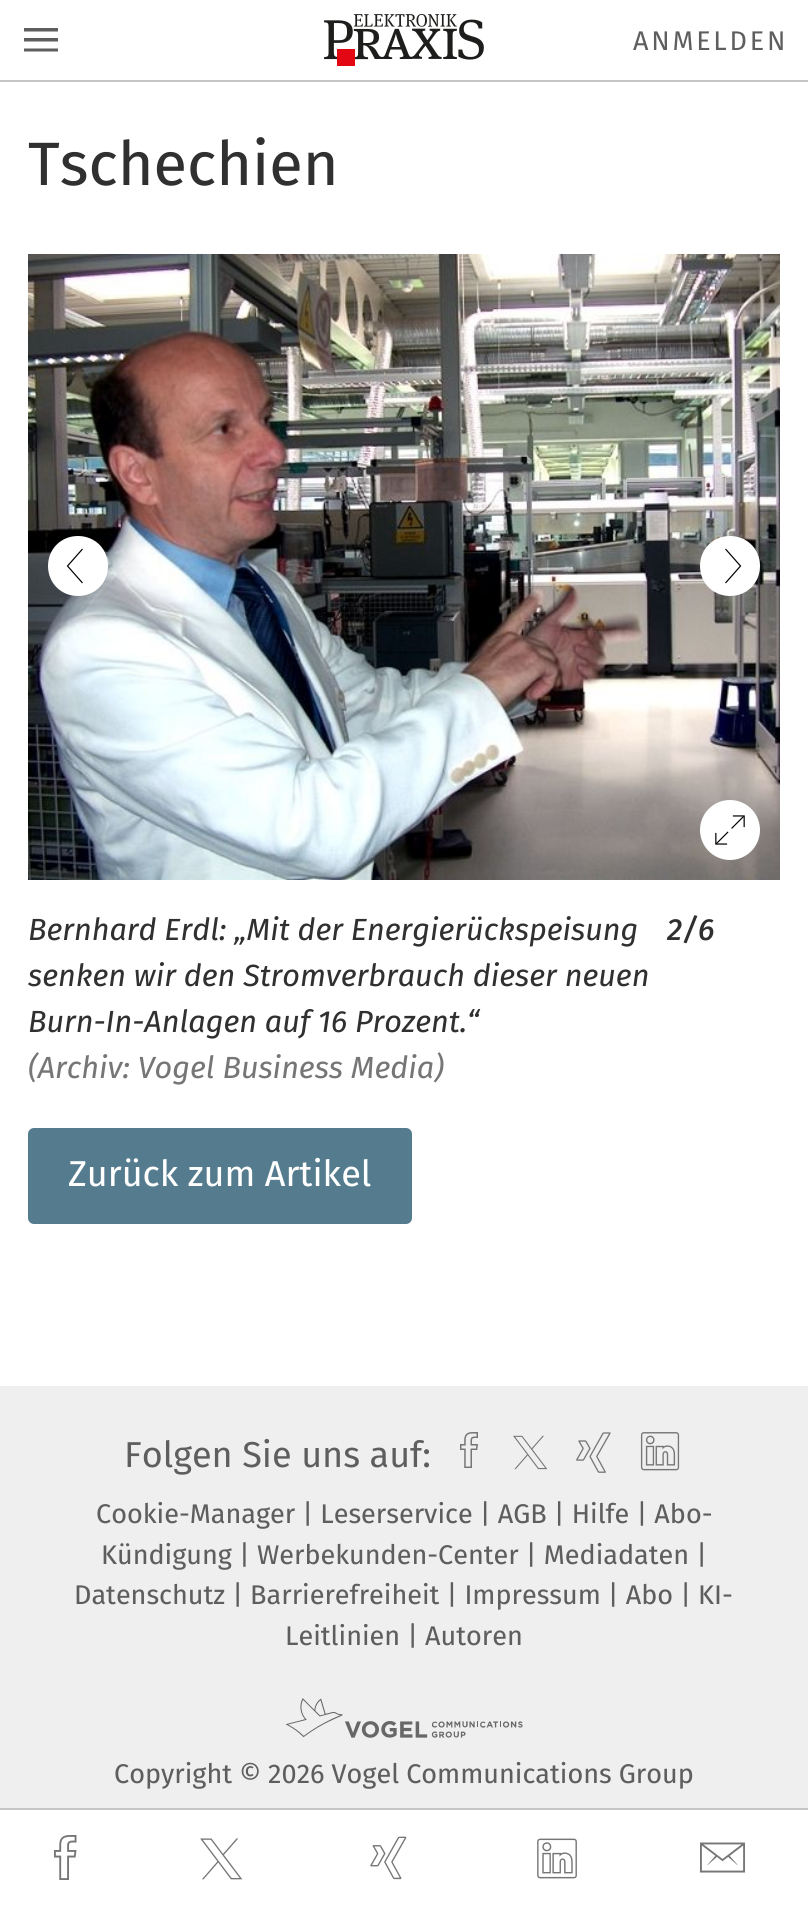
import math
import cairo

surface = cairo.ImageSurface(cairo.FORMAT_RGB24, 808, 1907)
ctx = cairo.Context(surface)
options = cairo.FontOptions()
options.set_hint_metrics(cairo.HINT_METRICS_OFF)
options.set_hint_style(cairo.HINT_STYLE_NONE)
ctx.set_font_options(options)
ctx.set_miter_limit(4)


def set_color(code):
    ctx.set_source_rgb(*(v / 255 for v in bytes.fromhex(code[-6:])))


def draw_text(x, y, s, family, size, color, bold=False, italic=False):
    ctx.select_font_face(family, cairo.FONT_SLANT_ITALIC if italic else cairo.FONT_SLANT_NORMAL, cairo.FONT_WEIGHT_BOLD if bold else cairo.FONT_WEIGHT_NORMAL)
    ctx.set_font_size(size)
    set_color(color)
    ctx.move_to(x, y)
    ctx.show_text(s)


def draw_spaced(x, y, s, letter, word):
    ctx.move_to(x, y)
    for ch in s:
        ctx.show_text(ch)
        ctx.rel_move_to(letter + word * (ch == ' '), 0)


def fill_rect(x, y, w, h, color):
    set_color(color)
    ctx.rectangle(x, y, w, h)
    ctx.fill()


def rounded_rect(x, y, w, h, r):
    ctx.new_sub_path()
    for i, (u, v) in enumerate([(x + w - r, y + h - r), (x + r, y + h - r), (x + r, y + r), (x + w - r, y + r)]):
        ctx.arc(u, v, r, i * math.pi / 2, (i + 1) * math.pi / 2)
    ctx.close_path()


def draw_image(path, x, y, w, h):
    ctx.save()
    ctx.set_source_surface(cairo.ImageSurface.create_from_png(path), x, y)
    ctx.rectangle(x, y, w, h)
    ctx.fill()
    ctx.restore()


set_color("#ffffff")
ctx.paint()
fill_rect(0, 80, 808, 2, "#c6c6c6")
set_color("#5e5e5e")
ctx.new_path()
ctx.move_to(24, 41.5)
ctx.line_to(24, 38)
ctx.line_to(58, 38)
ctx.line_to(58, 41.5)
ctx.close_path()
ctx.move_to(24, 31.5)
ctx.line_to(24, 28)
ctx.line_to(58, 28)
ctx.line_to(58, 31.5)
ctx.close_path()
ctx.move_to(24, 51.5)
ctx.line_to(24, 48.5)
ctx.line_to(58, 48.5)
ctx.line_to(58, 51.5)
ctx.close_path()
ctx.fill()
draw_image("assets/img1.png", 324, 14, 160, 52)
ctx.select_font_face("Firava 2")
ctx.set_font_size(27)
draw_spaced(633, 50, "ANMELDEN", 2.75, 0)
draw_text(28, 185, "Tschechien", "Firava", 61.25, "#303030")
draw_image("assets/img2.png", 28, 254, 752, 626)
set_color("#ffffff")
ctx.new_path()
ctx.move_to(78, 596)
ctx.curve_to(95, 596, 108, 583, 108, 566)
ctx.curve_to(108, 549, 95, 536, 78, 536)
ctx.curve_to(61, 536, 48, 549, 48, 566)
ctx.curve_to(48, 583, 61, 596, 78, 596)
ctx.fill()
ctx.new_path()
ctx.move_to(82.5, 549)
ctx.line_to(67.5, 566)
ctx.line_to(82.5, 583)
set_color("#000000")
ctx.set_line_width(1.2)
ctx.stroke()
set_color("#ffffff")
ctx.new_path()
ctx.move_to(730, 536)
ctx.curve_to(713, 536, 700, 549, 700, 566)
ctx.curve_to(700, 583, 713, 596, 730, 596)
ctx.curve_to(747, 596, 760, 583, 760, 566)
ctx.curve_to(760, 549, 747, 536, 730, 536)
ctx.fill()
ctx.new_path()
ctx.move_to(725.5, 583)
ctx.line_to(740.5, 566)
ctx.line_to(725.5, 549)
set_color("#000000")
ctx.stroke()
draw_image("assets/img3.png", 700, 800, 60, 60)
draw_text(28, 940, "Bernhard Erdl: „Mit der Energierückspeisung", "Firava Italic", 30.6, "#303030", italic=True)
draw_text(28, 986, "senken wir den Stromverbrauch dieser neuen", "Firava Italic", 30.6, "#303030", italic=True)
draw_text(28, 1032, "Burn-In-Anlagen auf 16 Prozent.“", "Firava Italic", 30.6, "#303030", italic=True)
draw_text(28, 1078, "(Archiv: Vogel Business Media)", "Firava Italic", 30.6, "#767676", italic=True)
draw_text(667, 940, "2/6", "Firava Italic Medium", 30.6, "#303030", italic=True)
set_color("#547c8e")
rounded_rect(28, 1128, 384, 96, 6)
ctx.fill()
draw_text(68, 1186, "Zurück zum Artikel", "Firava", 36, "#ffffff")
fill_rect(0, 1808, 808, 2, "#c6c6c6")
draw_image("assets/img4.png", 54, 1835, 23, 45)
draw_image("assets/img5.png", 200, 1838, 43, 42)
draw_image("assets/img6.png", 370, 1836, 37, 44)
draw_image("assets/img7.png", 537, 1838, 40, 41)
draw_image("assets/img8.png", 700, 1842, 45, 31)
fill_rect(0, 1386, 808, 422, "#efefef")
draw_text(124, 1467, "Folgen Sie uns auf:", "Firava 2", 36, "#5e5e5e")
draw_image("assets/img9.png", 460, 1432, 18, 36)
draw_image("assets/img10.png", 513, 1435, 35, 35)
draw_image("assets/img11.png", 576, 1432, 35, 41)
draw_image("assets/img12.png", 640, 1432, 40, 39)
draw_text(96, 1523, "Cookie-Manager | Leserservice | AGB | Hilfe | Abo-", "Firava", 27, "#5e5e5e")
draw_text(101, 1564, "Kündigung | Werbekunden-Center | Mediadaten |", "Firava", 27, "#5e5e5e")
draw_text(74, 1604, "Datenschutz | Barrierefreiheit | Impressum | Abo | KI-", "Firava", 27, "#5e5e5e")
draw_text(285, 1645, "Leitlinien | Autoren", "Firava", 27, "#5e5e5e")
draw_image("assets/img13.png", 285, 1698, 238, 40)
draw_text(114, 1783, "Copyright © 2026 Vogel Communications Group", "Firava", 27, "#5e5e5e")
surface.write_to_png("output.png")
